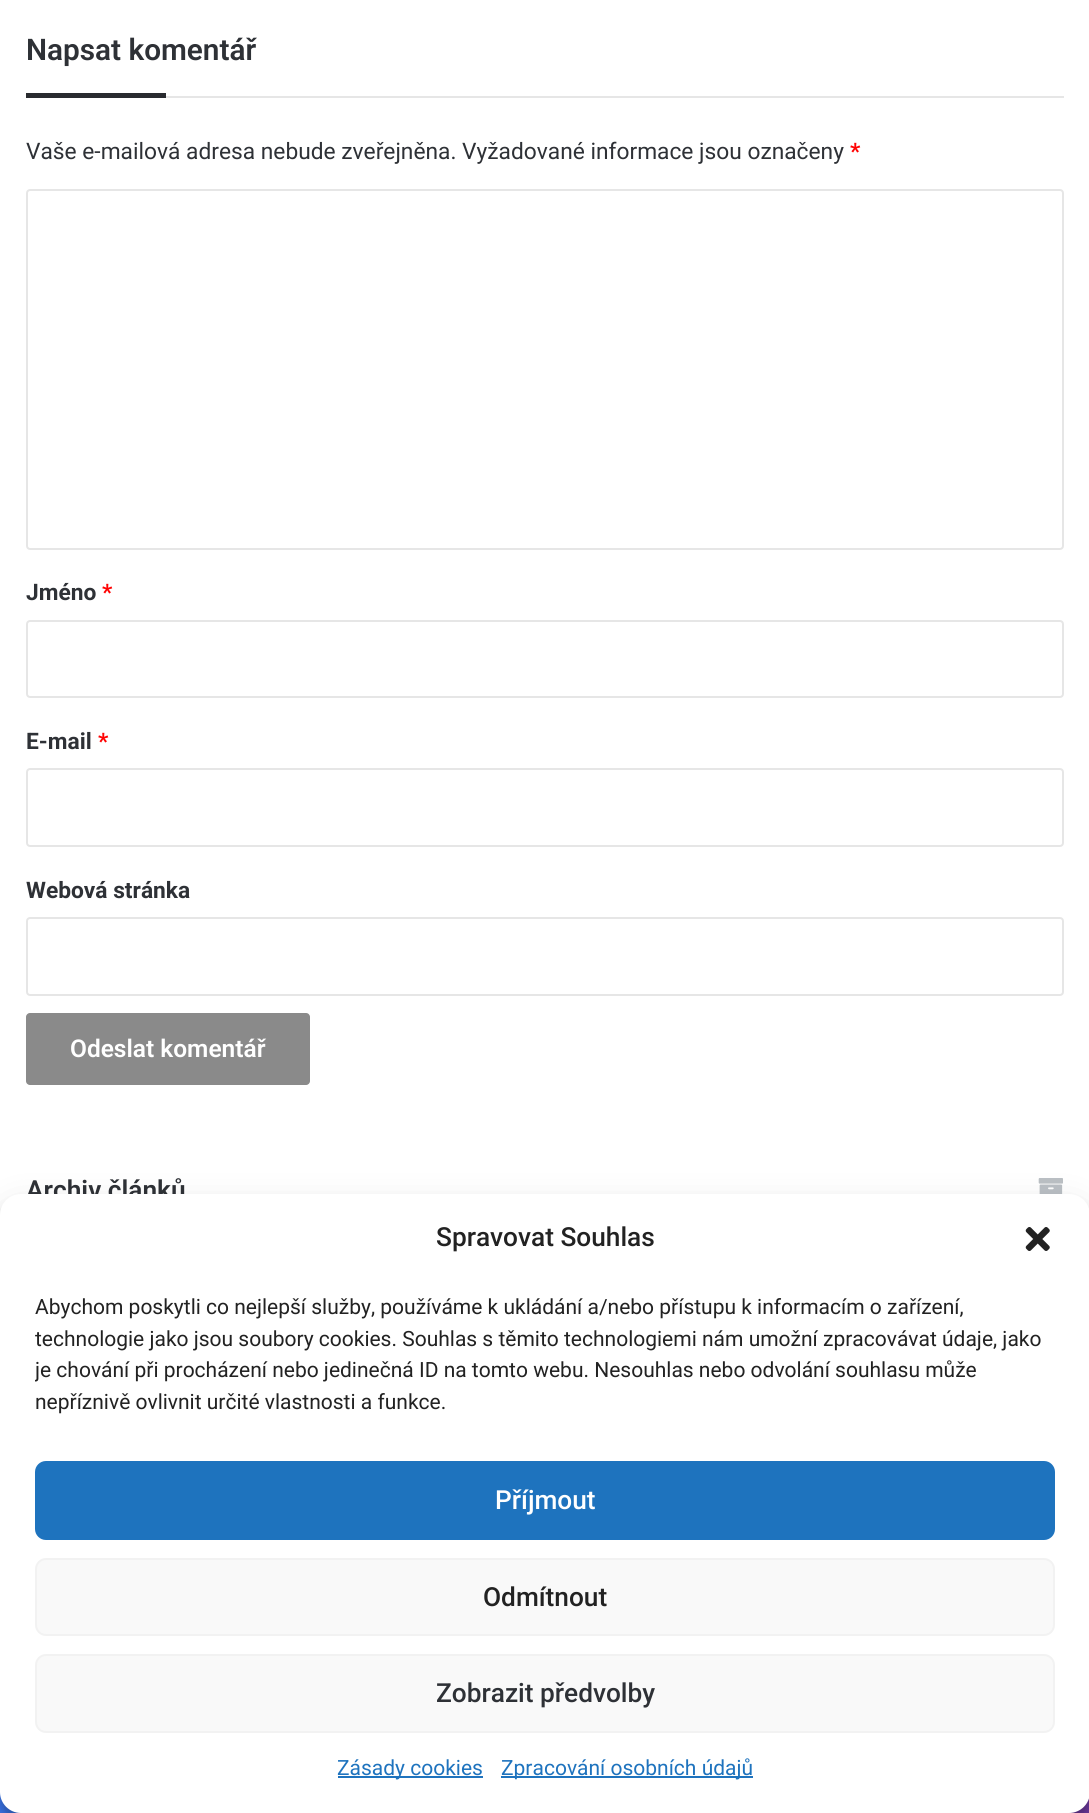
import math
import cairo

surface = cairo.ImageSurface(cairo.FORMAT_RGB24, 1089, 1813)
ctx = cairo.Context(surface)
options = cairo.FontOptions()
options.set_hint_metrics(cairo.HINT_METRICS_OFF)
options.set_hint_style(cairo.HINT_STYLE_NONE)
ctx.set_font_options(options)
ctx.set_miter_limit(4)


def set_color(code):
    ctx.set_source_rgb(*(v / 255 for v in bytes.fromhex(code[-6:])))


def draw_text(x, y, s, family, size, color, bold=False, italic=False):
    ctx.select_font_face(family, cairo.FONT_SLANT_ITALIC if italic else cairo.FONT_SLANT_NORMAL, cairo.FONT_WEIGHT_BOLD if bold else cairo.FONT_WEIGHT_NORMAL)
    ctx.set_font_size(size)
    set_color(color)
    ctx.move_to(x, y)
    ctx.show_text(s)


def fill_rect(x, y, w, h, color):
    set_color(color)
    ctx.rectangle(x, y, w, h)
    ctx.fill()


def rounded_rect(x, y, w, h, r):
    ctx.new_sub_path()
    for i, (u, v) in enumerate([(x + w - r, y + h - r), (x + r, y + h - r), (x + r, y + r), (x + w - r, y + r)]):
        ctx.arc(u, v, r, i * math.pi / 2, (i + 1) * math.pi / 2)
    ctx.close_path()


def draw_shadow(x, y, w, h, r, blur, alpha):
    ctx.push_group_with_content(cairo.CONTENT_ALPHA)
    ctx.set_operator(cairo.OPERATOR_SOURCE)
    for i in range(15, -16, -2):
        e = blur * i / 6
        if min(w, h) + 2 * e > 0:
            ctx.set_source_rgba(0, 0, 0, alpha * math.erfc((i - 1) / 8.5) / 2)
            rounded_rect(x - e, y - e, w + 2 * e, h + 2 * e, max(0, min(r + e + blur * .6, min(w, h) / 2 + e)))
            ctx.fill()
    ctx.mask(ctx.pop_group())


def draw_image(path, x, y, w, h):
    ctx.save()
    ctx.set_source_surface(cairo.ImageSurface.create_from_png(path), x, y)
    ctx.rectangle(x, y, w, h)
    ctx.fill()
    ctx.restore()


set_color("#ffffff")
ctx.paint()
fill_rect(166, 96, 898, 2, "#e6e6e6")
draw_text(26, 60, "Napsat komentář", "Roboto SemiBold", 29.75, "#2e3136")
fill_rect(26, 93, 140, 5, "#292b2f")
draw_text(26, 159, "Vaše e-mailová adresa nebude zveřejněna. Vyžadované informace jsou označeny", "Roboto", 22.75, "#2e3136")
draw_text(850, 159, "*", "Roboto", 22.75, "#ff0303", bold=True)
rounded_rect(27, 190, 1036, 359, 3)
set_color("#e6e6e6")
ctx.stroke()
draw_text(26, 600, "Jméno", "Roboto", 22.75, "#2e3136", bold=True)
draw_text(102, 600, "*", "Roboto", 22.75, "#ff0303", bold=True)
rounded_rect(27, 621, 1036, 76, 3)
set_color("#e6e6e6")
ctx.stroke()
draw_text(26, 749, "E-mail", "Roboto", 22.75, "#2e3136", bold=True)
draw_text(98, 749, "*", "Roboto", 22.75, "#ff0303", bold=True)
rounded_rect(27, 769, 1036, 77, 3)
set_color("#e6e6e6")
ctx.stroke()
draw_text(26, 898, "Webová stránka", "Roboto", 22.75, "#2e3136", bold=True)
rounded_rect(27, 918, 1036, 77, 3)
set_color("#e6e6e6")
ctx.stroke()
set_color("#8a8a8a")
rounded_rect(26, 1013, 284, 72, 4)
ctx.fill()
draw_text(70, 1057, "Odeslat komentář", "Roboto SemiBold", 24.5, "#ffffff")
draw_text(26, 1199, "Archiv článků", "Roboto SemiBold", 26.25, "#2e3136")
draw_image("assets/img1.png", 1038, 1178, 25, 16)
fill_rect(0, 1792, 21, 21, "#4080ff")
fill_rect(1069, 1798, 20, 15, "#773ead")
set_color("#000000")
draw_shadow(0, 1204, 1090, 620, 21, 5, 0.23)
draw_shadow(0, 1211, 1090, 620, 21, 17.5, 0.19)
set_color("#ffffff")
rounded_rect(0, 1194, 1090, 619, 21)
ctx.fill()
draw_text(436, 1246, "Spravovat Souhlas", "Roboto Medium", 26.25, "#222222")
draw_image("assets/img2.png", 1025, 1227, 25, 24)
draw_text(35, 1314, "Abychom poskytli co nejlepší služby, používáme k ukládání a/nebo přístupu k informacím o zařízení,", "Roboto", 21, "#222222")
draw_text(35, 1346, "technologie jako jsou soubory cookies. Souhlas s těmito technologiemi nám umožní zpracovávat údaje, jako", "Roboto", 21, "#222222")
ctx.save()
ctx.rectangle(35, 1292, 1020, 134)
ctx.clip()
draw_text(35, 1377, "je chování při procházení nebo jedinečná ID na tomto webu. Nesouhlas nebo odvolání souhlasu může", "Roboto", 21, "#222222")
ctx.restore()
draw_text(35, 1409, "nepříznivě ovlivnit určité vlastnosti a funkce.", "Roboto", 21, "#222222")
set_color("#1e73be")
rounded_rect(36, 1462, 1018, 77, 10)
ctx.fill_preserve()
ctx.stroke()
draw_text(495, 1509, "Příjmout", "Roboto Medium", 26.25, "#ffffff")
set_color("#f9f9f9")
rounded_rect(36, 1559, 1018, 76, 10)
ctx.fill_preserve()
set_color("#f2f2f2")
ctx.stroke()
draw_text(483, 1606, "Odmítnout", "Roboto Medium", 26.25, "#222222")
set_color("#f9f9f9")
rounded_rect(36, 1655, 1018, 77, 10)
ctx.fill_preserve()
set_color("#f2f2f2")
ctx.stroke()
draw_text(436, 1702, "Zobrazit předvolby", "Roboto Medium", 26.25, "#2e3136")
fill_rect(338, 1776, 145, 2, "#1e73be")
draw_text(337, 1775, "Zásady cookies", "Roboto", 21, "#1e73be")
fill_rect(501, 1776, 252, 2, "#1e73be")
draw_text(501, 1775, "Zpracování osobních údajů", "Roboto", 21, "#1e73be")
surface.write_to_png("output.png")
